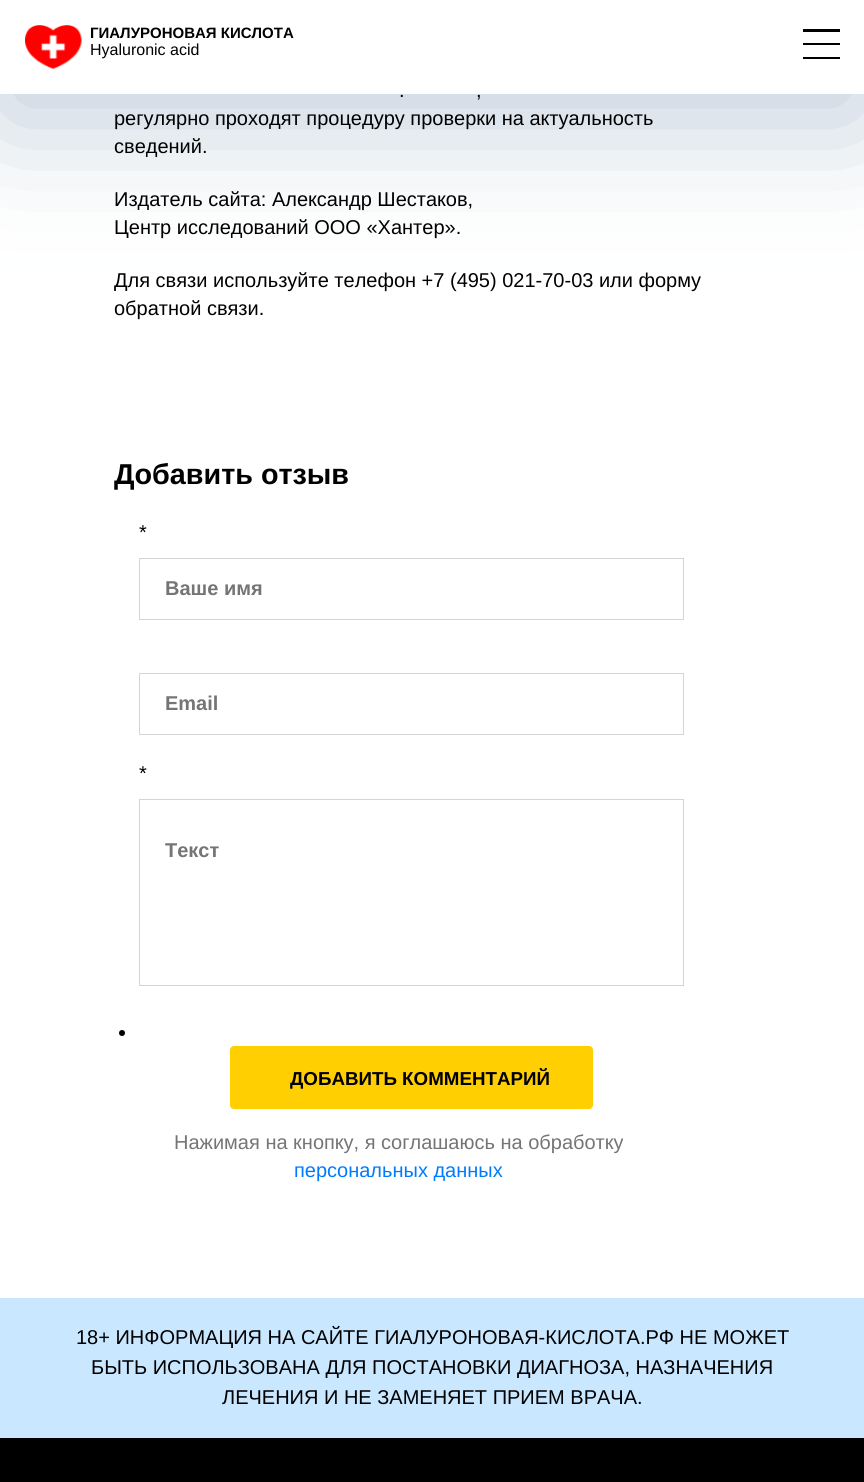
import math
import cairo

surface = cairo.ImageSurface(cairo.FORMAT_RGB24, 864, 1482)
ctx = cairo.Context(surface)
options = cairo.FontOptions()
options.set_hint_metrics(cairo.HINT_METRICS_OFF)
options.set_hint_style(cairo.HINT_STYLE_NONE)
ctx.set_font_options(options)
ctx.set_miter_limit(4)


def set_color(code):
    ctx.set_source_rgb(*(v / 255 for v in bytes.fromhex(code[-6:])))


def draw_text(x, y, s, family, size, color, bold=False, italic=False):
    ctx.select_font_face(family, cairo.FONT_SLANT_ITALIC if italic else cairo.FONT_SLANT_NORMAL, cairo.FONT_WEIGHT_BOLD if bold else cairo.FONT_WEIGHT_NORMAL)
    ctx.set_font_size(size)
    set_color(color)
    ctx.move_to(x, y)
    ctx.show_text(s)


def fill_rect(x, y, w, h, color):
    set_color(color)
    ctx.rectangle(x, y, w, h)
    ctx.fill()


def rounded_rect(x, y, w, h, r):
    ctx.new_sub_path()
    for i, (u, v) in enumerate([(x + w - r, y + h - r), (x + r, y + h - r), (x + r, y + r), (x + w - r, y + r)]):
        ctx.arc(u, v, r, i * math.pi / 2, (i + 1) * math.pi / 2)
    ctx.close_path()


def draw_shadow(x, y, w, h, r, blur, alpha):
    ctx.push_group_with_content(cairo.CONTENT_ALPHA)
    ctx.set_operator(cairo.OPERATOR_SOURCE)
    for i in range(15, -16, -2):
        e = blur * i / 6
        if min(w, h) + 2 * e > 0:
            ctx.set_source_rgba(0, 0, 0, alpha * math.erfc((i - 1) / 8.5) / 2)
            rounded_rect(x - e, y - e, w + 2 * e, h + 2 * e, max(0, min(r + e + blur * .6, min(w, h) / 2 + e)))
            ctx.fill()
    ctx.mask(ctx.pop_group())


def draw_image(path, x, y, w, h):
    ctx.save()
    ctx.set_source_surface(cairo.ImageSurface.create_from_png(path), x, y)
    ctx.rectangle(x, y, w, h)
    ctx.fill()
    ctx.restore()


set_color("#ffffff")
ctx.paint()
set_color("#becbd9")
draw_shadow(0, 25, 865, 94, 0, 62, 1)
fill_rect(0, 0, 864, 94, "#ffffff")
draw_image("assets/img1.png", 25, 25, 57, 45)
draw_text(90, 38, "ГИАЛУРОНОВАЯ КИСЛОТА", "Liberation Sans", 15, "#000000", bold=True)
draw_text(90, 55, "Hyaluronic acid", "Liberation Sans", 16, "#000000")
fill_rect(803, 29, 37, 3, "#000000")
fill_rect(803, 43, 37, 2, "#000000")
fill_rect(803, 57, 37, 2, "#000000")
draw_text(399, 97, ".", "Liberation Sans", 20, "#000000")
draw_text(476, 97, ",", "Liberation Sans", 20, "#000000")
draw_text(114, 125, "регулярно проходят процедуру проверки на актуальность", "Liberation Sans", 20, "#000000")
draw_text(114, 153, "сведений.", "Liberation Sans", 20, "#000000")
draw_text(114, 206, "Издатель сайта: Александр Шестаков,", "Liberation Sans", 20, "#000000")
draw_text(114, 234, "Центр исследований ООО «Хантер».", "Liberation Sans", 20, "#000000")
draw_text(114, 287, "Для связи используйте телефон +7 (495) 021-70-03 или форму", "Liberation Sans", 20, "#000000")
draw_text(114, 315, "обратной связи.", "Liberation Sans", 20, "#000000")
draw_text(114, 484, "Добавить отзыв", "Liberation Sans", 28.75, "#000000", bold=True)
draw_text(139, 539, "*", "Liberation Sans", 20, "#000000")
ctx.rectangle(139.5, 558.5, 544, 61)
set_color("#d5d5d5")
ctx.set_line_width(1)
ctx.stroke()
draw_text(165, 595, "Ваше имя", "Liberation Sans", 20, "#757575", bold=True)
ctx.rectangle(139.5, 673.5, 544, 61)
set_color("#d5d5d5")
ctx.stroke()
draw_text(165, 710, "Email", "Liberation Sans", 20, "#757575", bold=True)
draw_text(139, 780, "*", "Liberation Sans", 20, "#000000")
ctx.rectangle(139.5, 799.5, 544, 186)
set_color("#d5d5d5")
ctx.stroke()
draw_text(165, 857, "Текст", "Liberation Sans", 20, "#757575", bold=True)
set_color("#000000")
ctx.new_path()
ctx.arc(122, 1033, 3, 0, 2 * math.pi)
ctx.fill()
set_color("#ffcf01")
rounded_rect(230, 1046, 363, 63, 4)
ctx.fill()
draw_text(290, 1085, "ДОБАВИТЬ КОММЕНТАРИЙ", "Liberation Sans", 18.75, "#000000", bold=True)
draw_text(174, 1149, "Нажимая на кнопку, я соглашаюсь на обработку", "Liberation Sans", 20, "#757575")
draw_text(294, 1177, "персональных данных", "Liberation Sans", 20, "#007bff")
fill_rect(0, 1298, 864, 140, "#c9e7ff")
draw_text(76, 1344, "18+ ИНФОРМАЦИЯ НА САЙТЕ ГИАЛУРОНОВАЯ-КИСЛОТА.РФ НЕ МОЖЕТ", "Liberation Sans", 20, "#000000")
draw_text(91, 1374, "БЫТЬ ИСПОЛЬЗОВАНА ДЛЯ ПОСТАНОВКИ ДИАГНОЗА, НАЗНАЧЕНИЯ", "Liberation Sans", 20, "#000000")
draw_text(222, 1404, "ЛЕЧЕНИЯ И НЕ ЗАМЕНЯЕТ ПРИЕМ ВРАЧА.", "Liberation Sans", 20, "#000000")
fill_rect(0, 1438, 864, 44, "#000000")
surface.write_to_png("output.png")
